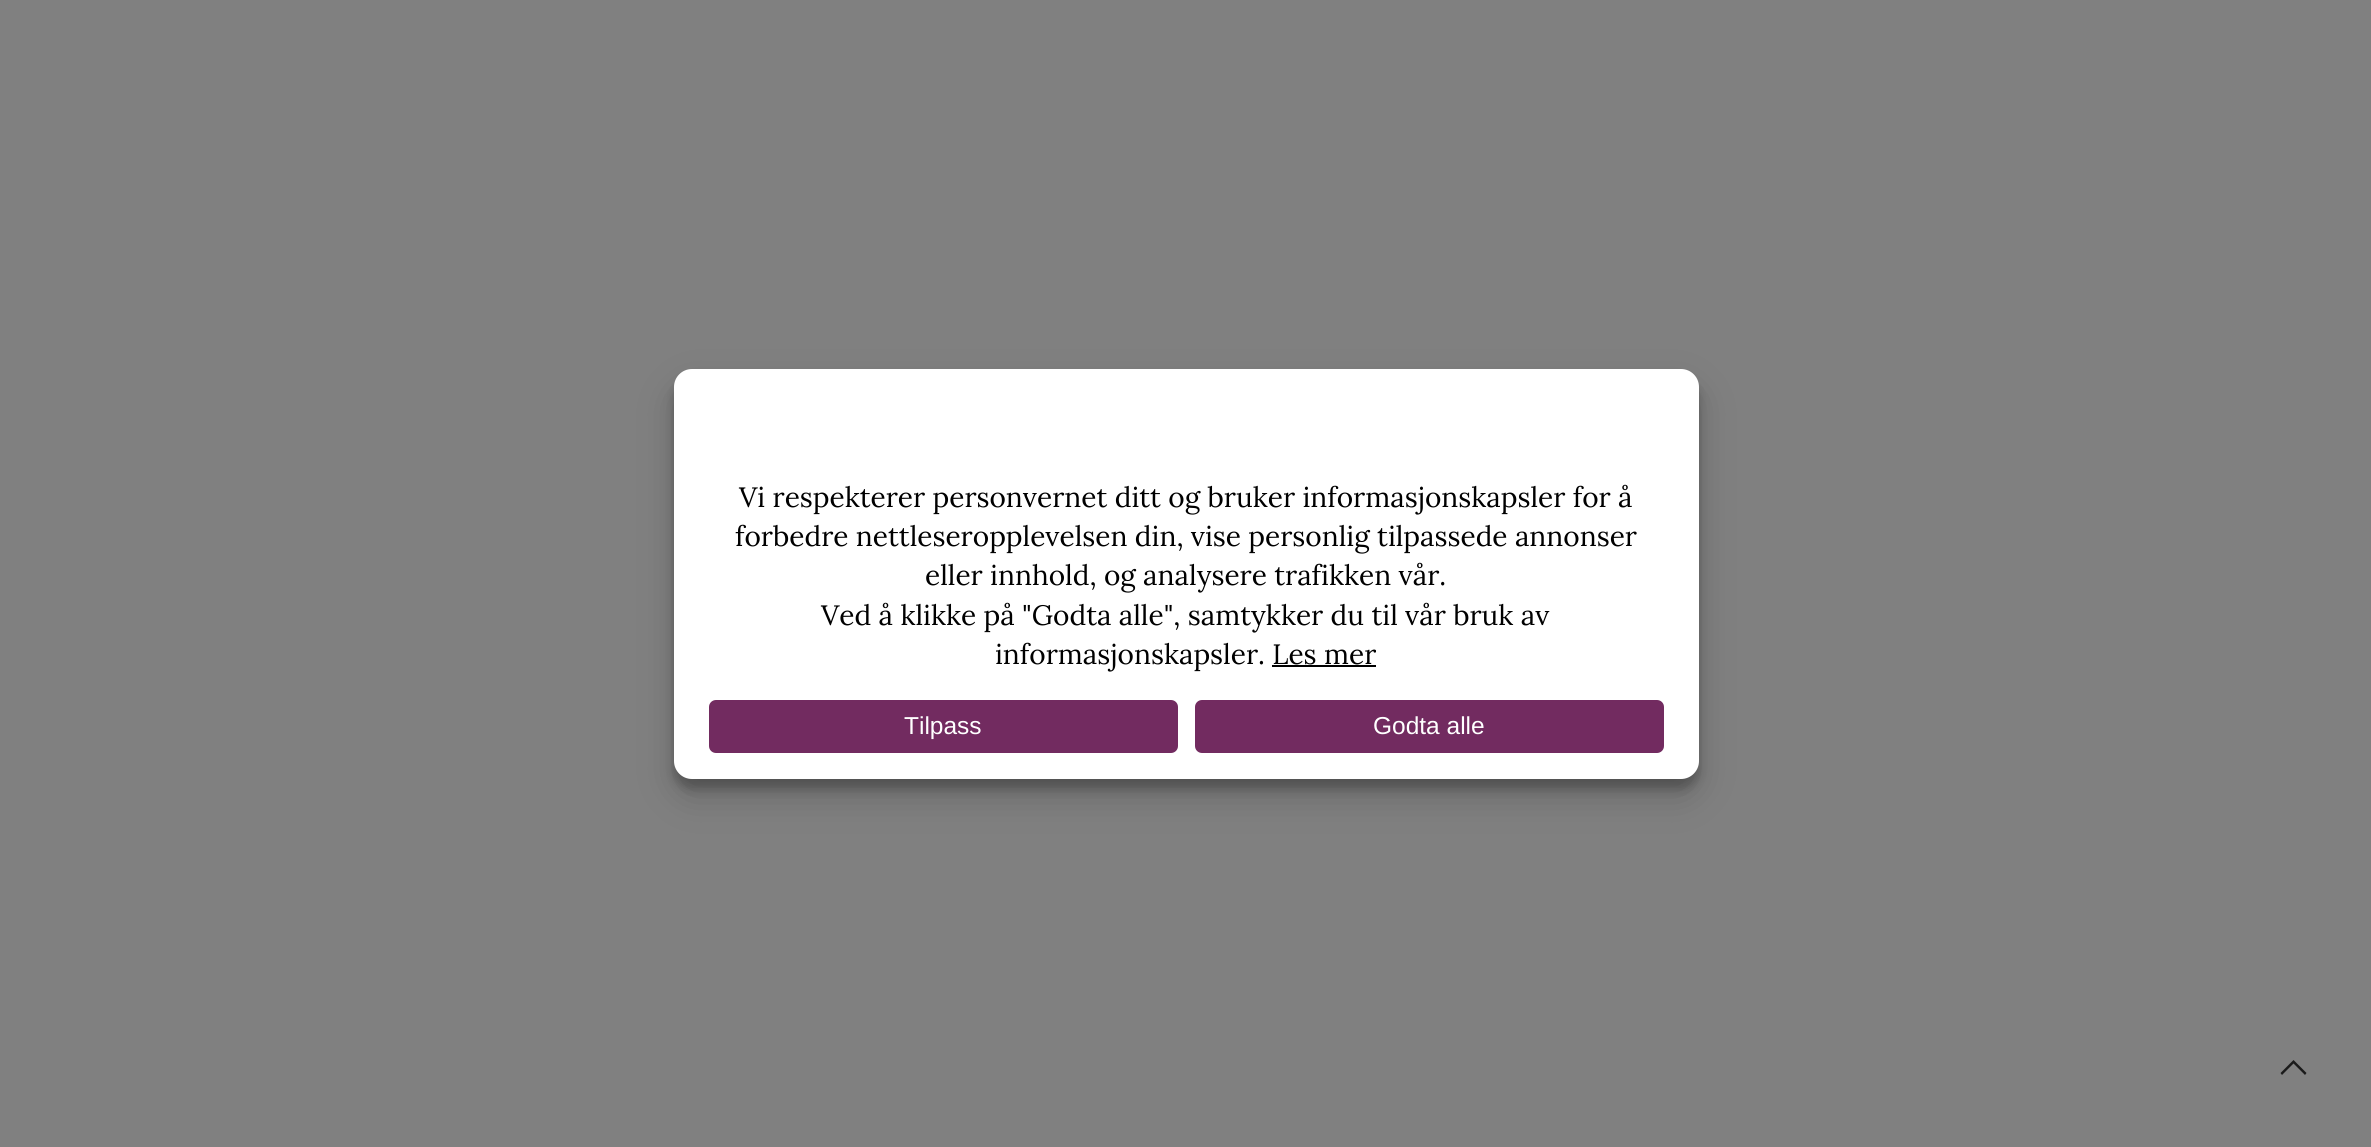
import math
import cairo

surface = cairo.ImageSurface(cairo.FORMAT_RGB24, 2371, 1147)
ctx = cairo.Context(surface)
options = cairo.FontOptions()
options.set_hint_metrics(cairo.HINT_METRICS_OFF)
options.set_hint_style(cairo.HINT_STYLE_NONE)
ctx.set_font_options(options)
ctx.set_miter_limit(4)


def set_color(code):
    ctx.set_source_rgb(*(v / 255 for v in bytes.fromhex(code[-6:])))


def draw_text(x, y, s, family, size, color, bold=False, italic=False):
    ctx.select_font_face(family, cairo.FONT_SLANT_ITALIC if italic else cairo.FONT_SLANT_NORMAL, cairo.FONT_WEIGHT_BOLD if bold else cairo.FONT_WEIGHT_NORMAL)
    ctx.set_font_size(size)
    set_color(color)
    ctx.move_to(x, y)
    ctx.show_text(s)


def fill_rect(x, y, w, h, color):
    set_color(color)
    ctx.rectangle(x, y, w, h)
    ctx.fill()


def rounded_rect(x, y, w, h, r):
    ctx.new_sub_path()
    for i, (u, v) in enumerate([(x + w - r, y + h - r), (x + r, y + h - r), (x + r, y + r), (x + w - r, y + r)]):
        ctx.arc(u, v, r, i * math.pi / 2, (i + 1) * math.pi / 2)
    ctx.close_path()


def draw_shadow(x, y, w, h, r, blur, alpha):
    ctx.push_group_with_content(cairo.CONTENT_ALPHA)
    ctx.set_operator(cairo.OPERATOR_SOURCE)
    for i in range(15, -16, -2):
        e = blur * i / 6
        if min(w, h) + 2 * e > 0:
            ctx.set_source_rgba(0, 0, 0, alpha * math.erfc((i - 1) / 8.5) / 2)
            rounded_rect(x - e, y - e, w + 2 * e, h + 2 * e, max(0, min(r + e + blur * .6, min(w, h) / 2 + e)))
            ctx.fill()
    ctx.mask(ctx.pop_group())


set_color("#808080")
ctx.paint()
set_color("#000000")
draw_shadow(674, 380, 1025, 409, 18, 5, 0.23)
draw_shadow(674, 387, 1025, 409, 18, 17.5, 0.19)
set_color("#ffffff")
rounded_rect(674, 369, 1025, 410, 18)
ctx.fill()
draw_text(739, 507, "Vi respekterer personvernet ditt og bruker informasjonskapsler for å", "Lora", 28, "#000000")
draw_text(735, 546, "forbedre nettleseropplevelsen din, vise personlig tilpassede annonser", "Lora", 28, "#000000")
draw_text(925, 585, "eller innhold, og analysere trafikken vår.", "Lora", 28, "#000000")
draw_text(821, 625, "Ved å klikke på \"Godta alle\", samtykker du til vår bruk av", "Lora", 28, "#000000")
draw_text(995, 664, "informasjonskapsler. Les mer", "Lora", 28, "#000000")
fill_rect(1272, 665, 104, 2, "#000000")
set_color("#722b60")
rounded_rect(709, 700, 469, 53, 7)
ctx.fill()
draw_text(904, 734, "Tilpass", "Liberation Sans", 24.5, "#ffffff")
set_color("#722b60")
rounded_rect(1195, 700, 469, 53, 7)
ctx.fill()
draw_text(1373, 734, "Godta alle", "Liberation Sans", 24.5, "#ffffff")
set_color("#1a1a1a")
ctx.new_path()
ctx.move_to(2305, 1075)
ctx.line_to(2306.5, 1073)
ctx.line_to(2293.5, 1060)
ctx.line_to(2280.5, 1073)
ctx.line_to(2282, 1075)
ctx.line_to(2293.5, 1063.5)
ctx.close_path()
ctx.fill()
surface.write_to_png("output.png")
